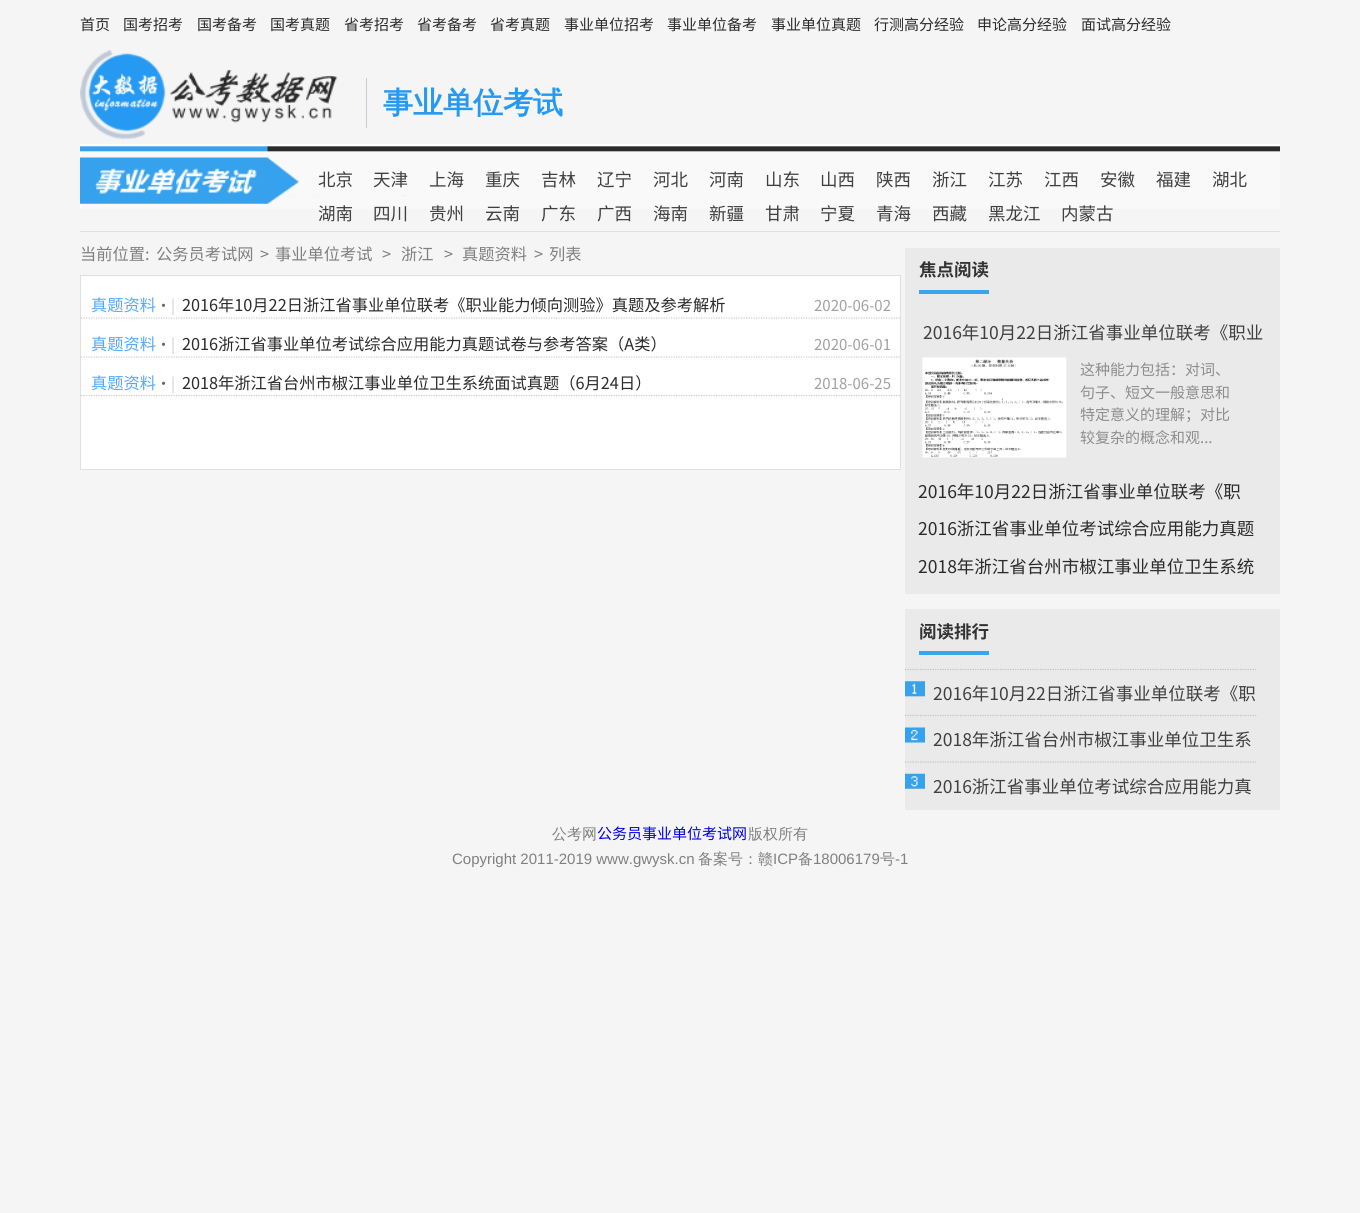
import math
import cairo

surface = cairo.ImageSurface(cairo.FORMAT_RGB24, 1360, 1213)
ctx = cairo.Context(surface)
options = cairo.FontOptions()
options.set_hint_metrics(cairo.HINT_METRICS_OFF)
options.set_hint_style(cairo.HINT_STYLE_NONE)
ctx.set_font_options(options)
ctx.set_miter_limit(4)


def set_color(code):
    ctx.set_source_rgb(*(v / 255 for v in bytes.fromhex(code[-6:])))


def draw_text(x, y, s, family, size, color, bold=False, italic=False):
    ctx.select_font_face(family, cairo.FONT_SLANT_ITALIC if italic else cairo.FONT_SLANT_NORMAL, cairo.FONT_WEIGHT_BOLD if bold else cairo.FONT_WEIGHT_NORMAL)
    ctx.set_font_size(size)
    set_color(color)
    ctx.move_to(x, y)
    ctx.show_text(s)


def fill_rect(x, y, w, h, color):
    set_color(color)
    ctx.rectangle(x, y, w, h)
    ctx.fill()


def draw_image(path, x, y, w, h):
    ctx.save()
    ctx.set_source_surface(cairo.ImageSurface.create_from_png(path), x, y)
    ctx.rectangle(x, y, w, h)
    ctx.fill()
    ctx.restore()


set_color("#f5f5f5")
ctx.paint()
draw_text(80, 30, "首页", "Noto Sans CJK SC", 15, "#2b2b2b")
draw_text(123, 30, "国考招考", "Noto Sans CJK SC", 15, "#2b2b2b")
draw_text(197, 30, "国考备考", "Noto Sans CJK SC", 15, "#2b2b2b")
draw_text(270, 30, "国考真题", "Noto Sans CJK SC", 15, "#2b2b2b")
draw_text(344, 30, "省考招考", "Noto Sans CJK SC", 15, "#2b2b2b")
draw_text(417, 30, "省考备考", "Noto Sans CJK SC", 15, "#2b2b2b")
draw_text(490, 30, "省考真题", "Noto Sans CJK SC", 15, "#2b2b2b")
draw_text(564, 30, "事业单位招考", "Noto Sans CJK SC", 15, "#2b2b2b")
draw_text(667, 30, "事业单位备考", "Noto Sans CJK SC", 15, "#2b2b2b")
draw_text(771, 30, "事业单位真题", "Noto Sans CJK SC", 15, "#2b2b2b")
draw_text(874, 30, "行测高分经验", "Noto Sans CJK SC", 15, "#2b2b2b")
draw_text(977, 30, "申论高分经验", "Noto Sans CJK SC", 15, "#2b2b2b")
draw_text(1081, 30, "面试高分经验", "Noto Sans CJK SC", 15, "#2b2b2b")
draw_image("assets/img1.png", 80, 50, 258, 90)
fill_rect(366, 78, 1, 50, "#cccccc")
draw_text(383, 113, "事业单位考试", "WenQuanYi Zen Hei", 30, "#269af2", bold=True)
draw_image("assets/img2.png", 80, 144, 1200, 65)
fill_rect(80, 231, 1200, 1, "#e0e0e0")
draw_text(318, 186, "北京", "Noto Sans CJK SC", 17.5, "#404040")
draw_text(373, 186, "天津", "Noto Sans CJK SC", 17.5, "#404040")
draw_text(429, 186, "上海", "Noto Sans CJK SC", 17.5, "#404040")
draw_text(485, 186, "重庆", "Noto Sans CJK SC", 17.5, "#404040")
draw_text(541, 186, "吉林", "Noto Sans CJK SC", 17.5, "#404040")
draw_text(597, 186, "辽宁", "Noto Sans CJK SC", 17.5, "#404040")
draw_text(653, 186, "河北", "Noto Sans CJK SC", 17.5, "#404040")
draw_text(709, 186, "河南", "Noto Sans CJK SC", 17.5, "#404040")
draw_text(765, 186, "山东", "Noto Sans CJK SC", 17.5, "#404040")
draw_text(820, 186, "山西", "Noto Sans CJK SC", 17.5, "#404040")
draw_text(876, 186, "陕西", "Noto Sans CJK SC", 17.5, "#404040")
draw_text(932, 186, "浙江", "Noto Sans CJK SC", 17.5, "#404040")
draw_text(988, 186, "江苏", "Noto Sans CJK SC", 17.5, "#404040")
draw_text(1044, 186, "江西", "Noto Sans CJK SC", 17.5, "#404040")
draw_text(1100, 186, "安徽", "Noto Sans CJK SC", 17.5, "#404040")
draw_text(1156, 186, "福建", "Noto Sans CJK SC", 17.5, "#404040")
draw_text(1212, 186, "湖北", "Noto Sans CJK SC", 17.5, "#404040")
draw_text(318, 220, "湖南", "Noto Sans CJK SC", 17.5, "#404040")
draw_text(373, 220, "四川", "Noto Sans CJK SC", 17.5, "#404040")
draw_text(429, 220, "贵州", "Noto Sans CJK SC", 17.5, "#404040")
draw_text(485, 220, "云南", "Noto Sans CJK SC", 17.5, "#404040")
draw_text(541, 220, "广东", "Noto Sans CJK SC", 17.5, "#404040")
draw_text(597, 220, "广西", "Noto Sans CJK SC", 17.5, "#404040")
draw_text(653, 220, "海南", "Noto Sans CJK SC", 17.5, "#404040")
draw_text(709, 220, "新疆", "Noto Sans CJK SC", 17.5, "#404040")
draw_text(765, 220, "甘肃", "Noto Sans CJK SC", 17.5, "#404040")
draw_text(820, 220, "宁夏", "Noto Sans CJK SC", 17.5, "#404040")
draw_text(876, 220, "青海", "Noto Sans CJK SC", 17.5, "#404040")
draw_text(932, 220, "西藏", "Noto Sans CJK SC", 17.5, "#404040")
draw_text(988, 220, "黑龙江", "Noto Sans CJK SC", 17.5, "#404040")
draw_text(1061, 220, "内蒙古", "Noto Sans CJK SC", 17.5, "#404040")
draw_text(80, 260, "当前位置:", "Noto Sans CJK SC", 16.25, "#808080")
draw_text(156, 260, "公务员考试网", "Noto Sans CJK SC", 16.25, "#808080")
draw_text(260, 260, ">", "Noto Sans CJK SC", 16.25, "#808080")
draw_text(275, 260, "事业单位考试", "Noto Sans CJK SC", 16.25, "#808080")
draw_text(382, 260, ">", "Noto Sans CJK SC", 16.25, "#808080")
draw_text(401, 260, "浙江", "Noto Sans CJK SC", 16.25, "#808080")
draw_text(444, 260, ">", "Noto Sans CJK SC", 16.25, "#808080")
draw_text(462, 260, "真题资料", "Noto Sans CJK SC", 16.25, "#808080")
draw_text(534, 260, ">", "Noto Sans CJK SC", 16.25, "#808080")
draw_text(549, 260, "列表", "Noto Sans CJK SC", 16.25, "#808080")
set_color("#ffffff")
ctx.rectangle(80.5, 275.5, 820, 194)
ctx.fill_preserve()
set_color("#e0e0e0")
ctx.set_line_width(1)
ctx.stroke()
ctx.save()
ctx.rectangle(81, 276, 819, 193)
ctx.clip()
ctx.new_path()
ctx.move_to(81, 318)
ctx.line_to(906, 318)
set_color("#cccccc")
ctx.set_line_width(1.2)
ctx.set_dash([1.25, 1.25])
ctx.stroke()
ctx.restore()
draw_text(91, 311, "真题资料", "Noto Sans CJK SC", 16.25, "#53a9ff")
draw_text(156, 311, "·", "Noto Sans CJK SC", 15, "#666666")
draw_text(171, 311, "|", "Noto Sans CJK SC", 15, "#cccccc")
draw_text(182, 311, "2016年10月22日浙江省事业单位联考《职业能力倾向测验》真题及参考解析", "Noto Sans CJK SC", 16.25, "#2b2b2b")
draw_text(814, 311, "2020-06-02", "Noto Sans CJK SC", 15, "#a1a1a1")
ctx.save()
ctx.rectangle(81, 276, 819, 193)
ctx.clip()
ctx.new_path()
ctx.move_to(81, 357)
ctx.line_to(906, 357)
set_color("#cccccc")
ctx.set_line_width(1.2)
ctx.set_dash([1.25, 1.25])
ctx.stroke()
ctx.restore()
draw_text(91, 350, "真题资料", "Noto Sans CJK SC", 16.25, "#53a9ff")
draw_text(156, 350, "·", "Noto Sans CJK SC", 15, "#666666")
draw_text(171, 350, "|", "Noto Sans CJK SC", 15, "#cccccc")
draw_text(182, 350, "2016浙江省事业单位考试综合应用能力真题试卷与参考答案（A类）", "Noto Sans CJK SC", 16.25, "#2b2b2b")
draw_text(814, 350, "2020-06-01", "Noto Sans CJK SC", 15, "#a1a1a1")
ctx.save()
ctx.rectangle(81, 276, 819, 193)
ctx.clip()
ctx.new_path()
ctx.move_to(81, 395.5)
ctx.line_to(906, 395.5)
set_color("#cccccc")
ctx.set_line_width(1.2)
ctx.set_dash([1.25, 1.25])
ctx.stroke()
ctx.restore()
draw_text(91, 389, "真题资料", "Noto Sans CJK SC", 16.25, "#53a9ff")
draw_text(156, 389, "·", "Noto Sans CJK SC", 15, "#666666")
draw_text(171, 389, "|", "Noto Sans CJK SC", 15, "#cccccc")
draw_text(182, 389, "2018年浙江省台州市椒江事业单位卫生系统面试真题（6月24日）", "Noto Sans CJK SC", 16.25, "#2b2b2b")
draw_text(814, 389, "2018-06-25", "Noto Sans CJK SC", 15, "#a1a1a1")
fill_rect(905, 248, 375, 346, "#eaeaea")
fill_rect(919, 290, 70, 4, "#3aa5ef")
draw_text(919, 276, "焦点阅读", "Noto Sans CJK SC", 17.5, "#333333", bold=True)
draw_text(923, 339, "2016年10月22日浙江省事业单位联考《职业", "Noto Sans CJK SC", 17.5, "#404040")
draw_image("assets/img3.png", 922, 357, 145, 101)
draw_text(1080, 375, "这种能力包括：对词、", "Noto Sans CJK SC", 15, "#8d8d8d")
draw_text(1080, 398, "句子、短文一般意思和", "Noto Sans CJK SC", 15, "#8d8d8d")
draw_text(1080, 420, "特定意义的理解；对比", "Noto Sans CJK SC", 15, "#8d8d8d")
draw_text(1080, 443, "较复杂的概念和观...", "Noto Sans CJK SC", 15, "#8d8d8d")
draw_text(918, 498, "2016年10月22日浙江省事业单位联考《职", "Noto Sans CJK SC", 17.5, "#2b2b2b")
draw_text(918, 535, "2016浙江省事业单位考试综合应用能力真题", "Noto Sans CJK SC", 17.5, "#2b2b2b")
draw_text(918, 573, "2018年浙江省台州市椒江事业单位卫生系统", "Noto Sans CJK SC", 17.5, "#2b2b2b")
fill_rect(905, 609, 375, 201, "#eaeaea")
fill_rect(919, 651, 70, 4, "#3aa5ef")
draw_text(919, 638, "阅读排行", "Noto Sans CJK SC", 17.5, "#333333", bold=True)
draw_image("assets/img4.png", 905, 681, 20, 108)
ctx.new_path()
ctx.move_to(905, 669.5)
ctx.line_to(1257.5, 669.5)
set_color("#c2c2c2")
ctx.set_line_width(1.2)
ctx.set_dash([1.25, 1.25])
ctx.stroke()
draw_text(933, 700, "2016年10月22日浙江省事业单位联考《职", "Noto Sans CJK SC", 17.5, "#404040")
ctx.new_path()
ctx.move_to(905, 715.5)
ctx.line_to(1257.5, 715.5)
set_color("#c2c2c2")
ctx.stroke()
draw_text(933, 746, "2018年浙江省台州市椒江事业单位卫生系", "Noto Sans CJK SC", 17.5, "#404040")
ctx.new_path()
ctx.move_to(905, 762)
ctx.line_to(1257.5, 762)
set_color("#c2c2c2")
ctx.stroke()
draw_text(933, 793, "2016浙江省事业单位考试综合应用能力真", "Noto Sans CJK SC", 17.5, "#404040")
draw_text(552, 839, "公考网", "WenQuanYi Zen Hei Medium", 15, "#808080")
draw_text(597, 839, "公务员事业单位考试网", "Noto Sans CJK SC", 15, "#0000ee")
draw_text(748, 839, "版权所有", "WenQuanYi Zen Hei Medium", 15, "#808080")
draw_text(452, 864, "Copyright 2011-2019 www.gwysk.cn", "Liberation Sans", 15, "#808080")
draw_text(698, 864, "备案号：赣", "WenQuanYi Zen Hei Medium", 15, "#808080")
draw_text(773, 864, "ICP", "Liberation Sans", 15, "#808080")
draw_text(798, 864, "备", "WenQuanYi Zen Hei Medium", 15, "#808080")
draw_text(813, 864, "18006179", "Liberation Sans", 15, "#808080")
draw_text(880, 864, "号", "WenQuanYi Zen Hei Medium", 15, "#808080")
draw_text(895, 864, "-1", "Liberation Sans", 15, "#808080")
surface.write_to_png("output.png")
